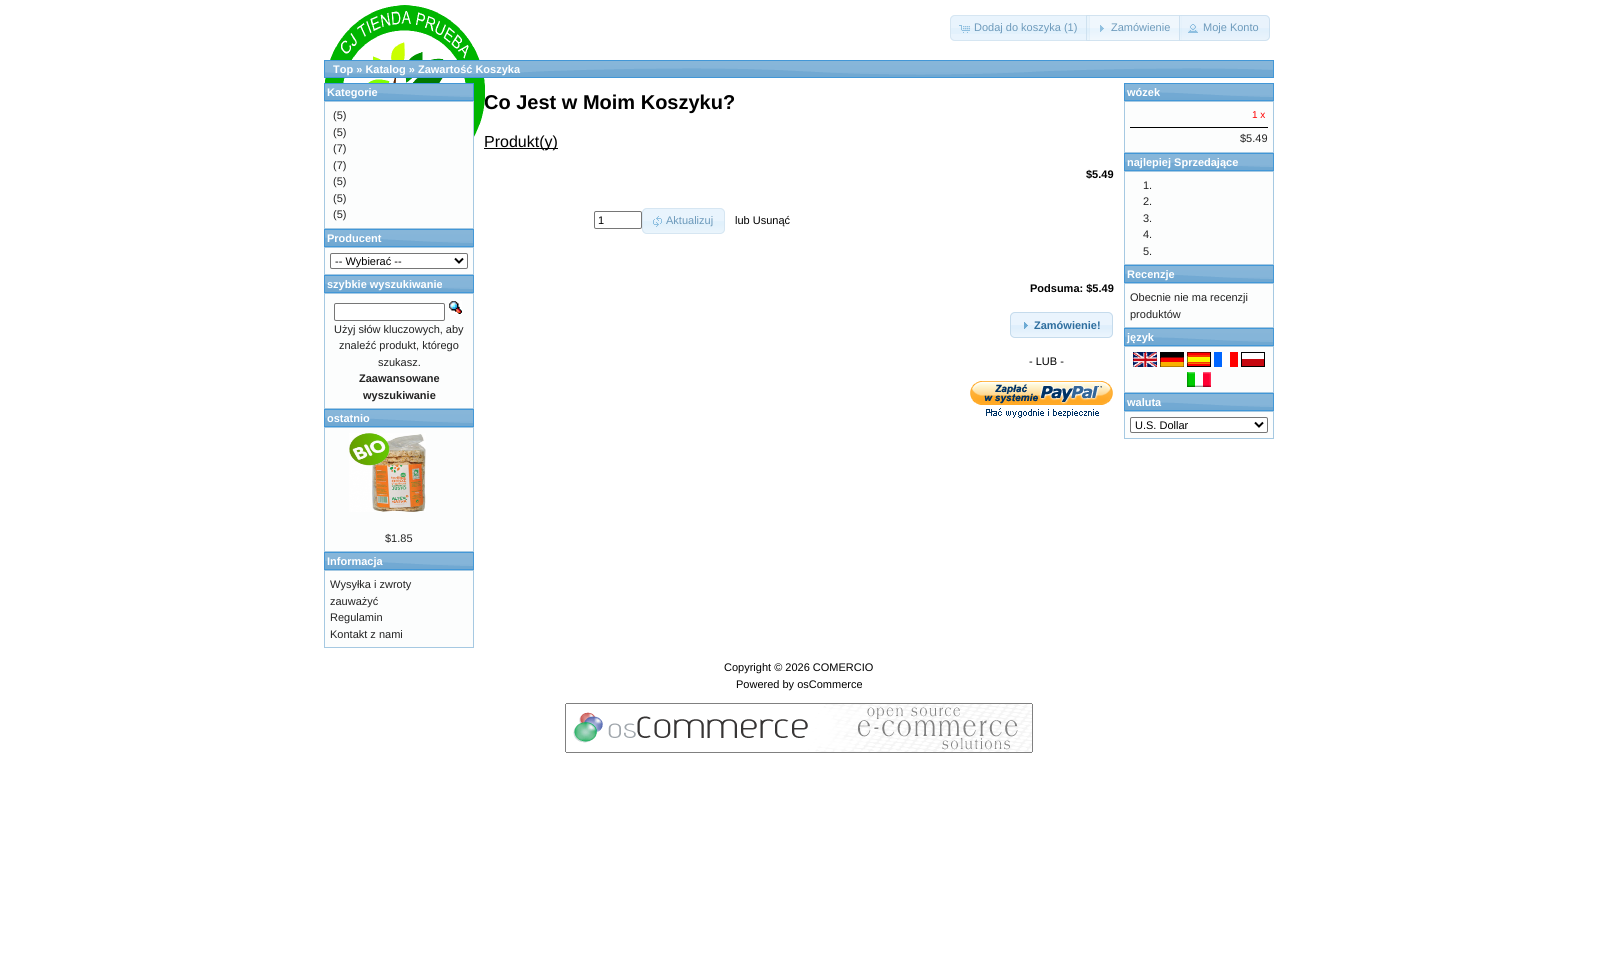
import math
import cairo

surface = cairo.ImageSurface(cairo.FORMAT_RGB24, 1598, 954)
ctx = cairo.Context(surface)
options = cairo.FontOptions()
options.set_hint_metrics(cairo.HINT_METRICS_OFF)
options.set_hint_style(cairo.HINT_STYLE_NONE)
ctx.set_font_options(options)
ctx.set_miter_limit(4)


def set_color(code):
    ctx.set_source_rgb(*(v / 255 for v in bytes.fromhex(code[-6:])))


def draw_text(x, y, s, family, size, color, bold=False, italic=False):
    ctx.select_font_face(family, cairo.FONT_SLANT_ITALIC if italic else cairo.FONT_SLANT_NORMAL, cairo.FONT_WEIGHT_BOLD if bold else cairo.FONT_WEIGHT_NORMAL)
    ctx.set_font_size(size)
    set_color(color)
    ctx.move_to(x, y)
    ctx.show_text(s)


def fill_rect(x, y, w, h, color):
    set_color(color)
    ctx.rectangle(x, y, w, h)
    ctx.fill()


def rounded_rect(x, y, w, h, r):
    ctx.new_sub_path()
    for i, (u, v) in enumerate([(x + w - r, y + h - r), (x + r, y + h - r), (x + r, y + r), (x + w - r, y + r)]):
        ctx.arc(u, v, r, i * math.pi / 2, (i + 1) * math.pi / 2)
    ctx.close_path()


def draw_image(path, x, y, w, h):
    ctx.save()
    ctx.set_source_surface(cairo.ImageSurface.create_from_png(path), x, y)
    ctx.rectangle(x, y, w, h)
    ctx.fill()
    ctx.restore()


set_color("#ffffff")
ctx.paint()
draw_image("assets/img1.png", 324, 5, 161, 132)
set_color("#e9f4fd")
ctx.new_path()
ctx.move_to(955, 15)
ctx.line_to(1090, 15)
ctx.line_to(1090, 41)
ctx.line_to(955, 41)
ctx.curve_to(952, 41, 950, 39, 950, 36)
ctx.line_to(950, 20)
ctx.curve_to(950, 17, 952, 15, 955, 15)
ctx.close_path()
ctx.fill()
fill_rect(950, 28, 140, 6, "#e2f1fc")
ctx.new_path()
ctx.move_to(955, 15.5)
ctx.line_to(1089.5, 15.5)
ctx.line_to(1089.5, 40.5)
ctx.line_to(955, 40.5)
ctx.curve_to(952.5, 40.5, 950.5, 38.5, 950.5, 36)
ctx.line_to(950.5, 20)
ctx.curve_to(950.5, 17.5, 952.5, 15.5, 955, 15.5)
ctx.close_path()
set_color("#d6e6f2")
ctx.set_line_width(1)
ctx.stroke()
draw_image("assets/img2.png", 959, 25, 11, 8)
draw_text(974, 31, "Dodaj do koszyka (1)", "Liberation Sans", 11, "#6d9abb")
draw_image("assets/img3.png", 1086, 15, 96, 26)
ctx.rectangle(1086.5, 15.5, 95, 25)
ctx.set_source_rgba(0.773, 0.859, 0.925, 0.7)
ctx.stroke()
draw_image("assets/img4.png", 1100, 25, 4, 7)
draw_text(1111, 31, "Zamówienie", "Liberation Sans", 11, "#6d9abb")
ctx.set_source_rgba(0.875, 0.937, 0.988, 0.7)
ctx.new_path()
ctx.move_to(1179, 15)
ctx.line_to(1265, 15)
ctx.curve_to(1268, 15, 1270, 17, 1270, 20)
ctx.line_to(1270, 36)
ctx.curve_to(1270, 39, 1268, 41, 1265, 41)
ctx.line_to(1179, 41)
ctx.close_path()
ctx.fill()
draw_image("assets/img5.png", 1179, 15, 91, 26)
ctx.new_path()
ctx.move_to(1179.5, 15.5)
ctx.line_to(1265, 15.5)
ctx.curve_to(1267.5, 15.5, 1269.5, 17.5, 1269.5, 20)
ctx.line_to(1269.5, 36)
ctx.curve_to(1269.5, 38.5, 1267.5, 40.5, 1265, 40.5)
ctx.line_to(1179.5, 40.5)
ctx.close_path()
ctx.set_source_rgba(0.773, 0.859, 0.925, 0.7)
ctx.stroke()
draw_image("assets/img6.png", 1188, 24, 10, 9)
draw_text(1203, 31, "Moje Konto", "Liberation Sans", 11, "#6d9abb")
draw_image("assets/img7.png", 325, 61, 948, 16)
ctx.rectangle(324.5, 60.5, 949, 17)
set_color("#4297d7")
ctx.stroke()
draw_text(333, 73, "Top » Katalog » Zawartość Koszyka", "Liberation Sans", 11, "#ffffff", bold=True)
draw_image("assets/img8.png", 325, 84, 148, 16)
ctx.rectangle(324.5, 83.5, 149, 17)
set_color("#4297d7")
ctx.stroke()
draw_text(327, 96, "Kategorie", "Liberation Sans", 11, "#ffffff", bold=True)
set_color("#fcfdfd")
ctx.rectangle(324.5, 101.5, 149, 127)
ctx.fill_preserve()
set_color("#a6c9e2")
ctx.stroke()
draw_text(333, 119, "(5)", "Liberation Sans", 11, "#222222")
draw_text(333, 136, "(5)", "Liberation Sans", 11, "#222222")
draw_text(333, 152, "(7)", "Liberation Sans", 11, "#222222")
draw_text(333, 169, "(7)", "Liberation Sans", 11, "#222222")
draw_text(333, 185, "(5)", "Liberation Sans", 11, "#222222")
draw_text(333, 202, "(5)", "Liberation Sans", 11, "#222222")
draw_text(333, 218, "(5)", "Liberation Sans", 11, "#222222")
draw_image("assets/img8.png", 325, 230, 148, 16)
ctx.rectangle(324.5, 229.5, 149, 17)
set_color("#4297d7")
ctx.stroke()
draw_text(327, 242, "Producent", "Liberation Sans", 11, "#ffffff", bold=True)
set_color("#fcfdfd")
ctx.rectangle(324.5, 247.5, 149, 27)
ctx.fill_preserve()
set_color("#a6c9e2")
ctx.stroke()
set_color("#ffffff")
rounded_rect(330.5, 253.5, 137, 15, 1.5)
ctx.fill_preserve()
set_color("#767676")
ctx.stroke()
ctx.new_path()
ctx.move_to(455, 258.5)
ctx.line_to(459, 262.5)
ctx.line_to(463, 258.5)
set_color("#000000")
ctx.set_line_width(2)
ctx.stroke()
draw_text(335, 265, "-- Wybierać --", "Liberation Sans", 11, "#000000")
draw_image("assets/img8.png", 325, 276, 148, 16)
ctx.rectangle(324.5, 275.5, 149, 17)
set_color("#4297d7")
ctx.set_line_width(1)
ctx.stroke()
draw_text(327, 288, "szybkie wyszukiwanie", "Liberation Sans", 11, "#ffffff", bold=True)
set_color("#fcfdfd")
ctx.rectangle(324.5, 293.5, 149, 115)
ctx.fill_preserve()
set_color("#a6c9e2")
ctx.stroke()
set_color("#ffffff")
rounded_rect(334.5, 303.5, 110, 17, 1.5)
ctx.fill_preserve()
set_color("#767676")
ctx.stroke()
draw_image("assets/img9.png", 449, 301, 13, 13)
draw_text(334, 333, "Użyj słów kluczowych, aby", "Liberation Sans", 11, "#222222")
draw_text(339, 349, "znaleźć produkt, którego", "Liberation Sans", 11, "#222222")
draw_text(378, 366, "szukasz.", "Liberation Sans", 11, "#222222")
draw_text(359, 382, "Zaawansowane", "Liberation Sans", 11, "#222222", bold=True)
draw_text(363, 399, "wyszukiwanie", "Liberation Sans", 11, "#222222", bold=True)
draw_image("assets/img8.png", 325, 410, 148, 16)
ctx.rectangle(324.5, 409.5, 149, 17)
set_color("#4297d7")
ctx.stroke()
draw_text(327, 422, "ostatnio", "Liberation Sans", 11, "#ffffff", bold=True)
set_color("#fcfdfd")
ctx.rectangle(324.5, 427.5, 149, 124)
ctx.fill_preserve()
set_color("#a6c9e2")
ctx.stroke()
draw_image("assets/img10.png", 349, 433, 77, 79)
draw_text(385, 542, "$1.85", "Liberation Sans", 11, "#222222")
draw_image("assets/img8.png", 325, 553, 148, 16)
ctx.rectangle(324.5, 552.5, 149, 17)
set_color("#4297d7")
ctx.stroke()
draw_text(327, 565, "Informacja", "Liberation Sans", 11, "#ffffff", bold=True)
set_color("#fcfdfd")
ctx.rectangle(324.5, 570.5, 149, 77)
ctx.fill_preserve()
set_color("#a6c9e2")
ctx.stroke()
draw_text(330, 588, "Wysyłka i zwroty", "Liberation Sans", 11, "#222222")
draw_text(330, 605, "zauważyć", "Liberation Sans", 11, "#222222")
draw_text(330, 621, "Regulamin", "Liberation Sans", 11, "#222222")
draw_text(330, 638, "Kontakt z nami", "Liberation Sans", 11, "#222222")
draw_text(484, 109, "Co Jest w Moim Koszyku?", "Liberation Sans", 20, "#000000", bold=True)
fill_rect(484, 148, 74, 1, "#000000")
draw_text(484, 147, "Produkt(y)", "Liberation Sans", 16, "#000000")
draw_text(1086, 178, "$5.49", "Liberation Sans", 11, "#000000", bold=True)
rounded_rect(594.5, 211.5, 47, 17, 1.5)
set_color("#767676")
ctx.stroke()
draw_text(598, 224, "1", "Liberation Sans", 11, "#000000")
set_color("#e9f4fd")
rounded_rect(642, 208, 83, 26, 5)
ctx.fill()
draw_image("assets/img11.png", 642, 221, 83, 12)
rounded_rect(642.5, 208.5, 82, 25, 4.5)
set_color("#d6e6f2")
ctx.stroke()
draw_image("assets/img12.png", 653, 216, 9, 11)
draw_text(666, 224, "Aktualizuj", "Liberation Sans", 11, "#6d9abb")
draw_text(735, 224, "lub Usunąć", "Liberation Sans", 11, "#000000")
draw_text(1030, 292, "Podsuma: $5.49", "Liberation Sans", 11, "#000000", bold=True)
draw_image("assets/img13.png", 1010, 312, 103, 26)
rounded_rect(1010.5, 312.5, 102, 25, 4.5)
set_color("#c5dbec")
ctx.stroke()
draw_image("assets/img14.png", 1024, 322, 4, 7)
draw_text(1034, 329, "Zamówienie!", "Liberation Sans", 11, "#2e6e9e", bold=True)
draw_text(1029, 365, "- LUB -", "Liberation Sans", 11, "#000000")
draw_image("assets/img15.png", 970, 381, 143, 37)
draw_image("assets/img8.png", 1125, 84, 148, 16)
ctx.rectangle(1124.5, 83.5, 149, 17)
set_color("#4297d7")
ctx.stroke()
draw_text(1127, 96, "wózek", "Liberation Sans", 11, "#ffffff", bold=True)
set_color("#fcfdfd")
ctx.rectangle(1124.5, 101.5, 149, 51)
ctx.fill_preserve()
set_color("#a6c9e2")
ctx.stroke()
draw_text(1252, 118, "1 x", "Liberation Sans", 10, "#ff0000")
fill_rect(1130, 127, 138, 1, "#000000")
draw_text(1240, 142, "$5.49", "Liberation Sans", 11, "#222222")
draw_image("assets/img8.png", 1125, 154, 148, 16)
ctx.rectangle(1124.5, 153.5, 149, 17)
set_color("#4297d7")
ctx.stroke()
draw_text(1127, 166, "najlepiej Sprzedające", "Liberation Sans", 11, "#ffffff", bold=True)
set_color("#fcfdfd")
ctx.rectangle(1124.5, 171.5, 149, 93)
ctx.fill_preserve()
set_color("#a6c9e2")
ctx.stroke()
draw_text(1143, 189, "1.", "Liberation Sans", 11, "#222222")
draw_text(1143, 205, "2.", "Liberation Sans", 11, "#222222")
draw_text(1143, 222, "3.", "Liberation Sans", 11, "#222222")
draw_text(1143, 238, "4.", "Liberation Sans", 11, "#222222")
draw_text(1143, 255, "5.", "Liberation Sans", 11, "#222222")
draw_image("assets/img8.png", 1125, 266, 148, 16)
ctx.rectangle(1124.5, 265.5, 149, 17)
set_color("#4297d7")
ctx.stroke()
draw_text(1127, 278, "Recenzje", "Liberation Sans", 11, "#ffffff", bold=True)
set_color("#fcfdfd")
ctx.rectangle(1124.5, 283.5, 149, 44)
ctx.fill_preserve()
set_color("#a6c9e2")
ctx.stroke()
draw_text(1130, 301, "Obecnie nie ma recenzji", "Liberation Sans", 11, "#222222")
draw_text(1130, 318, "produktów", "Liberation Sans", 11, "#222222")
draw_image("assets/img8.png", 1125, 329, 148, 16)
ctx.rectangle(1124.5, 328.5, 149, 17)
set_color("#4297d7")
ctx.stroke()
draw_text(1127, 341, "język", "Liberation Sans", 11, "#ffffff", bold=True)
set_color("#fcfdfd")
ctx.rectangle(1124.5, 346.5, 149, 46)
ctx.fill_preserve()
set_color("#a6c9e2")
ctx.stroke()
draw_image("assets/img16.png", 1133, 352, 24, 15)
draw_image("assets/img17.png", 1160, 352, 24, 15)
draw_image("assets/img18.png", 1187, 352, 24, 15)
draw_image("assets/img19.png", 1214, 352, 24, 15)
draw_image("assets/img20.png", 1241, 352, 24, 15)
draw_image("assets/img21.png", 1187, 372, 24, 15)
draw_image("assets/img8.png", 1125, 394, 148, 16)
ctx.rectangle(1124.5, 393.5, 149, 17)
set_color("#4297d7")
ctx.stroke()
draw_text(1127, 406, "waluta", "Liberation Sans", 11, "#ffffff", bold=True)
set_color("#fcfdfd")
ctx.rectangle(1124.5, 411.5, 149, 27)
ctx.fill_preserve()
set_color("#a6c9e2")
ctx.stroke()
set_color("#ffffff")
rounded_rect(1130.5, 417.5, 137, 15, 1.5)
ctx.fill_preserve()
set_color("#767676")
ctx.stroke()
ctx.new_path()
ctx.move_to(1255, 422.5)
ctx.line_to(1259, 426.5)
ctx.line_to(1263, 422.5)
set_color("#000000")
ctx.set_line_width(2)
ctx.stroke()
draw_text(1135, 429, "U.S. Dollar", "Liberation Sans", 11, "#000000")
draw_text(724, 671, "Copyright © 2026 COMERCIO", "Liberation Sans", 11, "#000000")
draw_text(736, 688, "Powered by osCommerce", "Liberation Sans", 11, "#000000")
draw_image("assets/img22.png", 565, 703, 468, 50)
surface.write_to_png("output.png")
